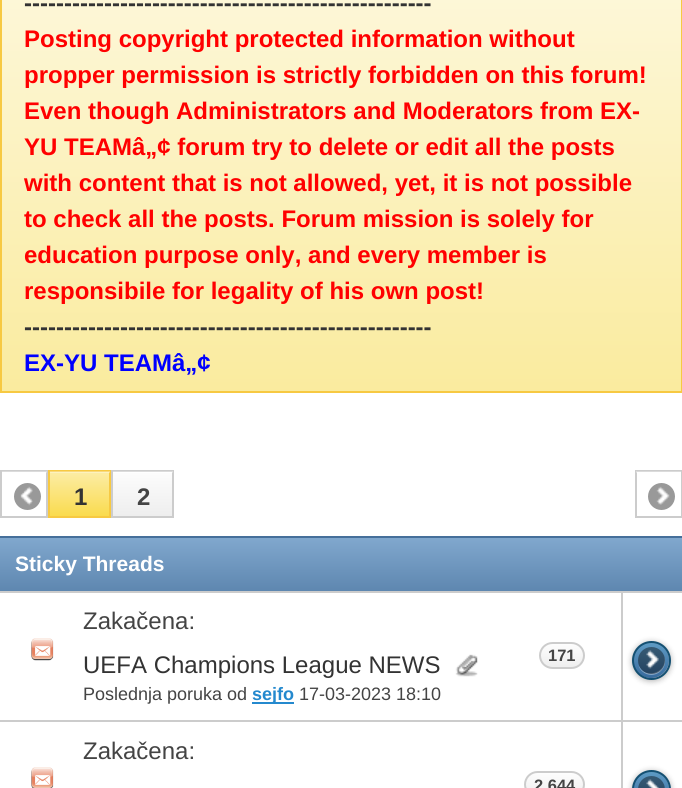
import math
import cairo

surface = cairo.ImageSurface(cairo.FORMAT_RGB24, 682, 788)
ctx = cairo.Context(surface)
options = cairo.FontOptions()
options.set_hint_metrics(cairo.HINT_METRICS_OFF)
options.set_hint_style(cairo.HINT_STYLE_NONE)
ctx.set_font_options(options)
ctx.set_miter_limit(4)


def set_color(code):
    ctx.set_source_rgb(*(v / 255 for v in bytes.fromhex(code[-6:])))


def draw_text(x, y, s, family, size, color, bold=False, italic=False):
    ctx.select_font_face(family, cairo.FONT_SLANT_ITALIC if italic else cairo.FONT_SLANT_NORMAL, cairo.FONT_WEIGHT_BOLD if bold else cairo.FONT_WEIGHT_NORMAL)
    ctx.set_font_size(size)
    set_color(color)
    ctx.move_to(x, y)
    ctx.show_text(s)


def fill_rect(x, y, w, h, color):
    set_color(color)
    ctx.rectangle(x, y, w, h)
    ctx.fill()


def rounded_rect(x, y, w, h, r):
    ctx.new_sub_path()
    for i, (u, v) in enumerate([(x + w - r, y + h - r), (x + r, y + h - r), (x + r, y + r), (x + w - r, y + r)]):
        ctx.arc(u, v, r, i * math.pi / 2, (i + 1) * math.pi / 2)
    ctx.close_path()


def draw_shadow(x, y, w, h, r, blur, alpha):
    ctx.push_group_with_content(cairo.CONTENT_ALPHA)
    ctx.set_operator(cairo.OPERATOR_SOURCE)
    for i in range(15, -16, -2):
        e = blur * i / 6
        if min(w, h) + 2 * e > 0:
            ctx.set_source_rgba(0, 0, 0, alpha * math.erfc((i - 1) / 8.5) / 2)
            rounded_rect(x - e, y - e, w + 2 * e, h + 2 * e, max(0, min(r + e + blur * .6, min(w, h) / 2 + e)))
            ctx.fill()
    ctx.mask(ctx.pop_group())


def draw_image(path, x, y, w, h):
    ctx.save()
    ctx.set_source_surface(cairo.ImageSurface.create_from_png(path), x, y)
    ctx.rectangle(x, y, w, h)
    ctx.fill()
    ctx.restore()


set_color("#ffffff")
ctx.paint()
gradient = cairo.LinearGradient(341, -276, 341, 392)
gradient.add_color_stop_rgba(0, 1, 1, 1, 1)
gradient.add_color_stop_rgba(1, 0.98, 0.922, 0.62, 1)
ctx.set_source(gradient)
ctx.rectangle(2, 0, 679, 391)
ctx.fill()
ctx.rectangle(1, -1, 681, 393)
set_color("#f7c942")
ctx.stroke()
draw_text(24, 11, "---------------------------------------------------", "Liberation Sans", 24, "#333333", bold=True)
draw_text(24, 47, "Posting copyright protected information without", "Liberation Sans", 24, "#ff0000", bold=True)
draw_text(24, 83, "propper permission is strictly forbidden on this forum!", "Liberation Sans", 24, "#ff0000", bold=True)
draw_text(24, 119, "Even though Administrators and Moderators from EX-", "Liberation Sans", 24, "#ff0000", bold=True)
draw_text(24, 155, "YU TEAMâ„¢ forum try to delete or edit all the posts", "Liberation Sans", 24, "#ff0000", bold=True)
draw_text(24, 191, "with content that is not allowed, yet, it is not possible", "Liberation Sans", 24, "#ff0000", bold=True)
draw_text(24, 227, "to check all the posts. Forum mission is solely for", "Liberation Sans", 24, "#ff0000", bold=True)
draw_text(24, 263, "education purpose only, and every member is", "Liberation Sans", 24, "#ff0000", bold=True)
draw_text(24, 299, "responsibile for legality of his own post!", "Liberation Sans", 24, "#ff0000", bold=True)
draw_text(24, 335, "---------------------------------------------------", "Liberation Sans", 24, "#333333", bold=True)
draw_text(24, 371, "EX-YU TEAMâ„¢", "Liberation Sans", 24, "#0000ff", bold=True)
ctx.rectangle(1, 471, 46, 46)
set_color("#cccccc")
ctx.stroke()
ctx.set_source_rgba(1, 1, 1, 0.3)
ctx.rectangle(2, 471, 45, 2)
ctx.fill()
set_color("#999999")
ctx.arc(27.5, 496.5, 13.5, 0, 2 * math.pi)
ctx.fill()
draw_image("assets/img1.png", 20, 486, 13, 20)
gradient = cairo.LinearGradient(80, 471, 80, 516)
gradient.add_color_stop_rgba(0, 0.988, 0.929, 0.655, 1)
gradient.add_color_stop_rgba(1, 0.98, 0.859, 0.306, 1)
ctx.set_source(gradient)
ctx.rectangle(50, 472, 59, 44)
ctx.fill()
ctx.rectangle(49, 471, 61, 46)
set_color("#f7c942")
ctx.stroke()
ctx.set_source_rgba(1, 1, 1, 0.3)
ctx.rectangle(50, 471, 60, 2)
ctx.fill()
draw_text(74, 505, "1", "Liberation Sans", 24, "#333333", bold=True)
gradient = cairo.LinearGradient(143, 471, 143, 516)
gradient.add_color_stop_rgba(0, 0.992, 0.992, 0.992, 1)
gradient.add_color_stop_rgba(1, 0.933, 0.933, 0.933, 1)
ctx.set_source(gradient)
ctx.rectangle(113, 473, 59, 43)
ctx.fill()
ctx.rectangle(112, 471, 61, 46)
set_color("#cccccc")
ctx.stroke()
ctx.set_source_rgba(1, 1, 1, 0.3)
ctx.rectangle(113, 471, 60, 2)
ctx.fill()
draw_text(137, 505, "2", "Liberation Sans", 24, "#444444", bold=True)
ctx.rectangle(636, 471, 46, 46)
set_color("#cccccc")
ctx.stroke()
ctx.set_source_rgba(1, 1, 1, 0.3)
ctx.rectangle(636, 471, 45, 2)
ctx.fill()
set_color("#999999")
ctx.arc(661.5, 496.5, 13.5, 0, 2 * math.pi)
ctx.fill()
draw_image("assets/img2.png", 656, 486, 14, 19)
gradient = cairo.LinearGradient(341, 537, 341, 591)
gradient.add_color_stop_rgba(0, 0.506, 0.659, 0.808, 1)
gradient.add_color_stop_rgba(1, 0.369, 0.529, 0.69, 1)
ctx.set_source(gradient)
ctx.rectangle(0, 538, 682, 53)
ctx.fill()
fill_rect(0, 536, 682, 2, "#456f9a")
draw_text(15, 571, "Sticky Threads", "Liberation Sans", 21, "#ffffff", bold=True)
fill_rect(0, 591, 682, 2, "#cccccc")
draw_image("assets/img3.png", 31, 638, 23, 23)
draw_text(83, 629, "Zakačena:", "Liberation Sans", 24, "#444444")
draw_text(83, 673, "UEFA Champions League NEWS", "Liberation Sans", 24, "#333333")
draw_image("assets/img4.png", 455, 654, 23, 23)
gradient = cairo.LinearGradient(562, 644, 562, 668)
gradient.add_color_stop_rgba(0, 0.992, 0.992, 0.992, 1)
gradient.add_color_stop_rgba(1, 0.933, 0.933, 0.933, 1)
ctx.set_source(gradient)
rounded_rect(540, 644, 44, 24, 12)
ctx.fill()
rounded_rect(540, 643, 44, 25, 12.5)
set_color("#cccccc")
ctx.stroke()
draw_text(548, 661, "171", "Liberation Sans", 16.5, "#444444", bold=True)
draw_text(83, 700, "Poslednja poruka od", "Liberation Sans", 18, "#444444")
fill_rect(252, 702, 42, 2, "#2489ce")
draw_text(252, 700, "sejfo", "Liberation Sans", 18, "#2489ce", bold=True)
draw_text(299, 700, "17-03-2023 18:10", "Liberation Sans", 18, "#444444")
fill_rect(621, 593, 2, 127, "#cccccc")
set_color("#000000")
draw_shadow(632, 642, 39, 39, 19.5, 3, 0.3)
gradient = cairo.LinearGradient(651, 642, 651, 678)
gradient.add_color_stop_rgba(0, 0.373, 0.612, 0.773, 1)
gradient.add_color_stop_rgba(1, 0.224, 0.42, 0.62, 1)
ctx.set_source(gradient)
ctx.arc(651, 660, 18, 0, 2 * math.pi)
ctx.fill()
ctx.arc(651.5, 660.5, 18.5, 0, 2 * math.pi)
set_color("#145072")
ctx.stroke()
ctx.set_source_rgba(1, 1, 1, 0.4)
ctx.new_path()
ctx.move_to(638.5, 665)
ctx.curve_to(639, 668, 641, 670.5, 643, 672)
ctx.curve_to(654, 680.5, 669, 669, 664, 656.5)
ctx.curve_to(668.5, 672.5, 644.5, 680.5, 638.5, 665)
ctx.close_path()
ctx.fill()
ctx.set_source_rgba(0, 0, 0, 0.4)
ctx.arc(651.5, 660.5, 13.5, 0, 2 * math.pi)
ctx.fill()
draw_image("assets/img5.png", 646, 650, 13, 19)
fill_rect(0, 720, 682, 2, "#cccccc")
draw_text(83, 759, "Zakačena:", "Liberation Sans", 24, "#444444")
draw_image("assets/img6.png", 31, 767, 23, 21)
gradient = cairo.LinearGradient(554, 773, 554, 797)
gradient.add_color_stop_rgba(0, 0.992, 0.992, 0.992, 1)
gradient.add_color_stop_rgba(1, 0.933, 0.933, 0.933, 1)
ctx.set_source(gradient)
rounded_rect(525, 773, 59, 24, 12)
ctx.fill()
rounded_rect(525, 772, 59, 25, 12.5)
set_color("#cccccc")
ctx.stroke()
draw_text(534, 791, "2.644", "Liberation Sans", 16.5, "#444444", bold=True)
fill_rect(621, 722, 2, 66, "#cccccc")
set_color("#000000")
draw_shadow(632, 771, 39, 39, 19.5, 3, 0.3)
gradient = cairo.LinearGradient(651, 771, 651, 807)
gradient.add_color_stop_rgba(0, 0.373, 0.612, 0.773, 1)
gradient.add_color_stop_rgba(1, 0.224, 0.42, 0.62, 1)
ctx.set_source(gradient)
rounded_rect(633, 771, 36, 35, 18)
ctx.fill()
ctx.arc(651.5, 789.5, 18.5, 0, 2 * math.pi)
set_color("#145072")
ctx.stroke()
set_color("#95b6d1")
ctx.new_path()
ctx.move_to(638.5, 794)
ctx.curve_to(639, 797, 641, 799.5, 643, 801)
ctx.curve_to(654, 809.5, 669, 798, 664, 785.5)
ctx.curve_to(668.5, 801.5, 644.5, 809.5, 638.5, 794)
ctx.close_path()
ctx.fill()
ctx.set_source_rgba(0, 0, 0, 0.4)
rounded_rect(638, 776, 27, 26, 13.5)
ctx.fill()
draw_image("assets/img7.png", 646, 779, 13, 9)
surface.write_to_png("output.png")
